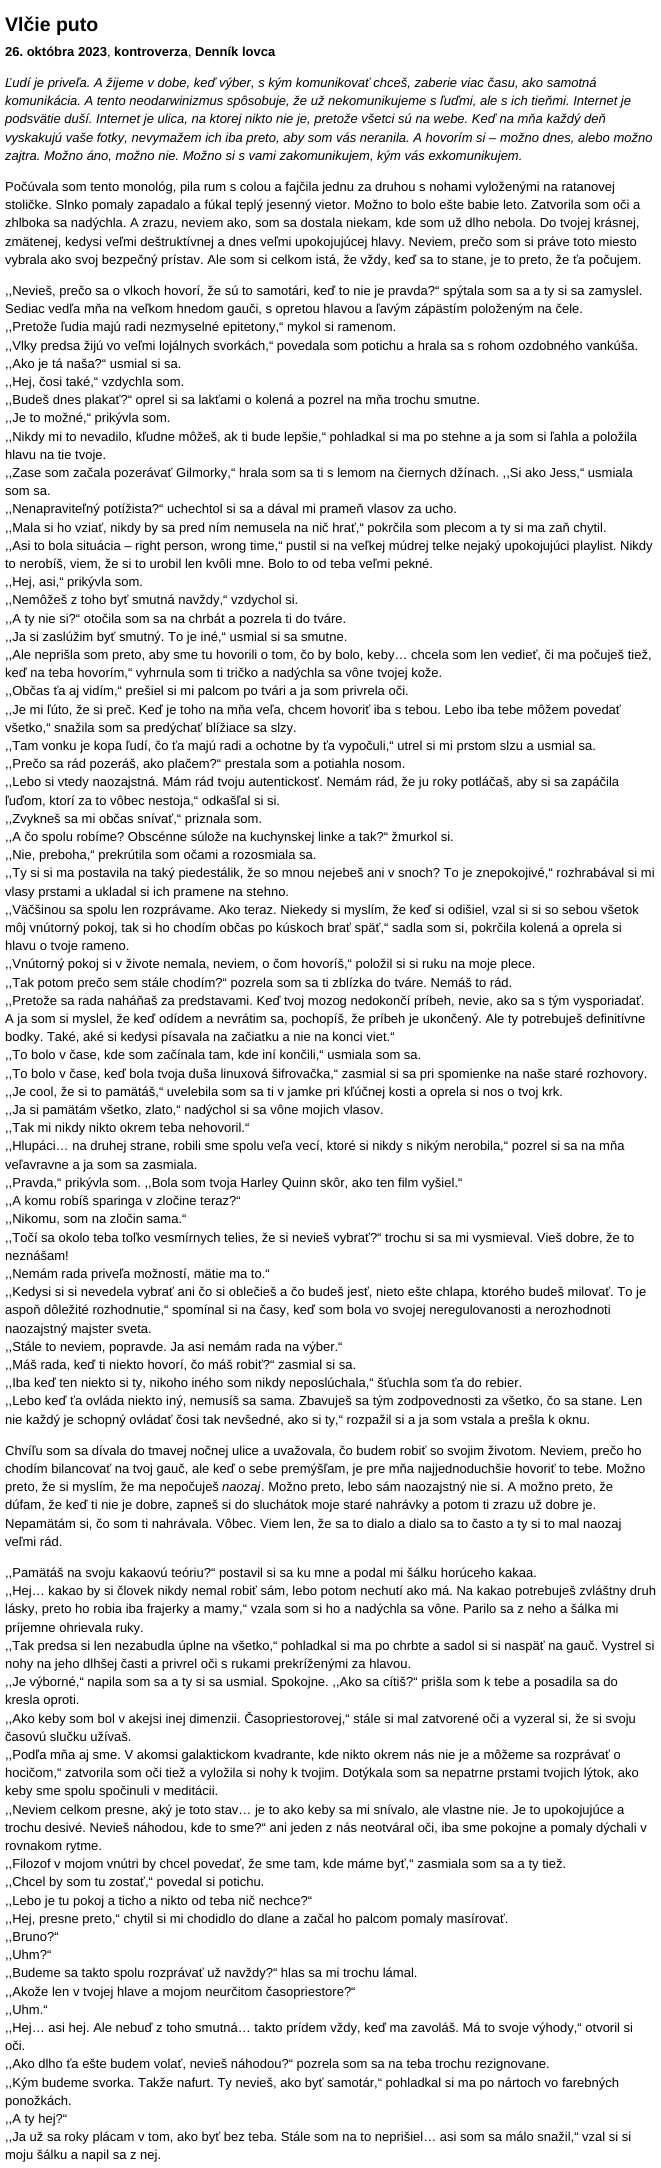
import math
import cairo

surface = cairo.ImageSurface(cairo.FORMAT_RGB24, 661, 2168)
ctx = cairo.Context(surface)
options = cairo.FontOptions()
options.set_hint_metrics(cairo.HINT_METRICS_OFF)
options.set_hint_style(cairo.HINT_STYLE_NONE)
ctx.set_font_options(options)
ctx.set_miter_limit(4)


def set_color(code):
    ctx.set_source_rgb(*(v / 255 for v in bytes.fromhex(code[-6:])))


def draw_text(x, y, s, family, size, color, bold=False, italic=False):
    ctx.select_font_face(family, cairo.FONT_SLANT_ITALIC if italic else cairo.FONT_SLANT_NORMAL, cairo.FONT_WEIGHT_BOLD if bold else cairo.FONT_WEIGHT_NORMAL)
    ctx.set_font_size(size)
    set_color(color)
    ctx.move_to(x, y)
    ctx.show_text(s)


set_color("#ffffff")
ctx.paint()
draw_text(5, 31, "Vlčie puto", "Liberation Sans", 19.5, "#000000", bold=True)
draw_text(5, 56, "26. októbra 2023", "Liberation Sans", 13, "#000000", bold=True)
draw_text(107, 56, ",", "Liberation Sans", 13, "#000000")
draw_text(114, 56, "kontroverza", "Liberation Sans", 13, "#000000", bold=True)
draw_text(188, 56, ",", "Liberation Sans", 13, "#000000")
draw_text(195, 56, "Denník lovca", "Liberation Sans", 13, "#000000", bold=True)
draw_text(5, 87, "Ľudí je priveľa. A žijeme v dobe, keď výber, s kým komunikovať chceš, zaberie viac času, ako samotná", "Liberation Sans", 13, "#000000", italic=True)
draw_text(5, 105, "komunikácia. A tento neodarwinizmus spôsobuje, že už nekomunikujeme s ľuďmi, ale s ich tieňmi. Internet je", "Liberation Sans", 13, "#000000", italic=True)
draw_text(5, 123, "podsvätie duší. Internet je ulica, na ktorej nikto nie je, pretože všetci sú na webe. Keď na mňa každý deň", "Liberation Sans", 13, "#000000", italic=True)
draw_text(5, 142, "vyskakujú vaše fotky, nevymažem ich iba preto, aby som vás neranila. A hovorím si – možno dnes, alebo možno", "Liberation Sans", 13, "#000000", italic=True)
draw_text(5, 160, "zajtra. Možno áno, možno nie. Možno si s vami zakomunikujem, kým vás exkomunikujem.", "Liberation Sans", 13, "#000000", italic=True)
draw_text(5, 191, "Počúvala som tento monológ, pila rum s colou a fajčila jednu za druhou s nohami vyloženými na ratanovej", "Liberation Sans", 13, "#000000")
draw_text(5, 209, "stoličke. Slnko pomaly zapadalo a fúkal teplý jesenný vietor. Možno to bolo ešte babie leto. Zatvorila som oči a", "Liberation Sans", 13, "#000000")
draw_text(5, 227, "zhlboka sa nadýchla. A zrazu, neviem ako, som sa dostala niekam, kde som už dlho nebola. Do tvojej krásnej,", "Liberation Sans", 13, "#000000")
draw_text(5, 246, "zmätenej, kedysi veľmi deštruktívnej a dnes veľmi upokojujúcej hlavy. Neviem, prečo som si práve toto miesto", "Liberation Sans", 13, "#000000")
draw_text(5, 264, "vybrala ako svoj bezpečný prístav. Ale som si celkom istá, že vždy, keď sa to stane, je to preto, že ťa počujem.", "Liberation Sans", 13, "#000000")
draw_text(5, 295, ",,Nevieš, prečo sa o vlkoch hovorí, že sú to samotári, keď to nie je pravda?“ spýtala som sa a ty si sa zamyslel.", "Liberation Sans", 13, "#000000")
draw_text(5, 313, "Sediac vedľa mňa na veľkom hnedom gauči, s opretou hlavou a ľavým zápästím položeným na čele.", "Liberation Sans", 13, "#000000")
draw_text(5, 331, ",,Pretože ľudia majú radi nezmyselné epitetony,“ mykol si ramenom.", "Liberation Sans", 13, "#000000")
draw_text(5, 350, ",,Vlky predsa žijú vo veľmi lojálnych svorkách,“ povedala som potichu a hrala sa s rohom ozdobného vankúša.", "Liberation Sans", 13, "#000000")
draw_text(5, 368, ",,Ako je tá naša?“ usmial si sa.", "Liberation Sans", 13, "#000000")
draw_text(5, 386, ",,Hej, čosi také,“ vzdychla som.", "Liberation Sans", 13, "#000000")
draw_text(5, 404, ",,Budeš dnes plakať?“ oprel si sa lakťami o kolená a pozrel na mňa trochu smutne.", "Liberation Sans", 13, "#000000")
draw_text(5, 422, ",,Je to možné,“ prikývla som.", "Liberation Sans", 13, "#000000")
draw_text(5, 441, ",,Nikdy mi to nevadilo, kľudne môžeš, ak ti bude lepšie,“ pohladkal si ma po stehne a ja som si ľahla a položila", "Liberation Sans", 13, "#000000")
draw_text(5, 459, "hlavu na tie tvoje.", "Liberation Sans", 13, "#000000")
draw_text(5, 477, ",,Zase som začala pozerávať Gilmorky,“ hrala som sa ti s lemom na čiernych džínach. ,,Si ako Jess,“ usmiala", "Liberation Sans", 13, "#000000")
draw_text(5, 495, "som sa.", "Liberation Sans", 13, "#000000")
draw_text(5, 513, ",,Nenapraviteľný potížista?“ uchechtol si sa a dával mi prameň vlasov za ucho.", "Liberation Sans", 13, "#000000")
draw_text(5, 532, ",,Mala si ho vziať, nikdy by sa pred ním nemusela na nič hrať,“ pokrčila som plecom a ty si ma zaň chytil.", "Liberation Sans", 13, "#000000")
draw_text(5, 550, ",,Asi to bola situácia – right person, wrong time,“ pustil si na veľkej múdrej telke nejaký upokojujúci playlist. Nikdy", "Liberation Sans", 13, "#000000")
draw_text(5, 568, "to nerobíš, viem, že si to urobil len kvôli mne. Bolo to od teba veľmi pekné.", "Liberation Sans", 13, "#000000")
draw_text(5, 586, ",,Hej, asi,“ prikývla som.", "Liberation Sans", 13, "#000000")
draw_text(5, 604, ",,Nemôžeš z toho byť smutná navždy,“ vzdychol si.", "Liberation Sans", 13, "#000000")
draw_text(5, 623, ",,A ty nie si?“ otočila som sa na chrbát a pozrela ti do tváre.", "Liberation Sans", 13, "#000000")
draw_text(5, 641, ",,Ja si zaslúžim byť smutný. To je iné,“ usmial si sa smutne.", "Liberation Sans", 13, "#000000")
draw_text(5, 659, ",,Ale neprišla som preto, aby sme tu hovorili o tom, čo by bolo, keby… chcela som len vedieť, či ma počuješ tiež,", "Liberation Sans", 13, "#000000")
draw_text(5, 677, "keď na teba hovorím,“ vyhrnula som ti tričko a nadýchla sa vône tvojej kože.", "Liberation Sans", 13, "#000000")
draw_text(5, 695, ",,Občas ťa aj vidím,“ prešiel si mi palcom po tvári a ja som privrela oči.", "Liberation Sans", 13, "#000000")
draw_text(5, 714, ",,Je mi ľúto, že si preč. Keď je toho na mňa veľa, chcem hovoriť iba s tebou. Lebo iba tebe môžem povedať", "Liberation Sans", 13, "#000000")
draw_text(5, 732, "všetko,“ snažila som sa predýchať blížiace sa slzy.", "Liberation Sans", 13, "#000000")
draw_text(5, 750, ",,Tam vonku je kopa ľudí, čo ťa majú radi a ochotne by ťa vypočuli,“ utrel si mi prstom slzu a usmial sa.", "Liberation Sans", 13, "#000000")
draw_text(5, 768, ",,Prečo sa rád pozeráš, ako plačem?“ prestala som a potiahla nosom.", "Liberation Sans", 13, "#000000")
draw_text(5, 786, ",,Lebo si vtedy naozajstná. Mám rád tvoju autentickosť. Nemám rád, že ju roky potláčaš, aby si sa zapáčila", "Liberation Sans", 13, "#000000")
draw_text(5, 805, "ľuďom, ktorí za to vôbec nestoja,“ odkašľal si si.", "Liberation Sans", 13, "#000000")
draw_text(5, 823, ",,Zvykneš sa mi občas snívať,“ priznala som.", "Liberation Sans", 13, "#000000")
draw_text(5, 841, ",,A čo spolu robíme? Obscénne súlože na kuchynskej linke a tak?“ žmurkol si.", "Liberation Sans", 13, "#000000")
draw_text(5, 859, ",,Nie, preboha,“ prekrútila som očami a rozosmiala sa.", "Liberation Sans", 13, "#000000")
draw_text(5, 877, ",,Ty si si ma postavila na taký piedestálik, že so mnou nejebeš ani v snoch? To je znepokojivé,“ rozhrabával si mi", "Liberation Sans", 13, "#000000")
draw_text(5, 896, "vlasy prstami a ukladal si ich pramene na stehno.", "Liberation Sans", 13, "#000000")
draw_text(5, 914, ",,Väčšinou sa spolu len rozprávame. Ako teraz. Niekedy si myslím, že keď si odišiel, vzal si si so sebou všetok", "Liberation Sans", 13, "#000000")
draw_text(5, 932, "môj vnútorný pokoj, tak si ho chodím občas po kúskoch brať späť,“ sadla som si, pokrčila kolená a oprela si", "Liberation Sans", 13, "#000000")
draw_text(5, 950, "hlavu o tvoje rameno.", "Liberation Sans", 13, "#000000")
draw_text(5, 968, ",,Vnútorný pokoj si v živote nemala, neviem, o čom hovoríš,“ položil si si ruku na moje plece.", "Liberation Sans", 13, "#000000")
draw_text(5, 987, ",,Tak potom prečo sem stále chodím?“ pozrela som sa ti zblízka do tváre. Nemáš to rád.", "Liberation Sans", 13, "#000000")
draw_text(5, 1005, ",,Pretože sa rada naháňaš za predstavami. Keď tvoj mozog nedokončí príbeh, nevie, ako sa s tým vysporiadať.", "Liberation Sans", 13, "#000000")
draw_text(5, 1023, "A ja som si myslel, že keď odídem a nevrátim sa, pochopíš, že príbeh je ukončený. Ale ty potrebuješ definitívne", "Liberation Sans", 13, "#000000")
draw_text(5, 1041, "bodky. Také, aké si kedysi písavala na začiatku a nie na konci viet.“", "Liberation Sans", 13, "#000000")
draw_text(5, 1059, ",,To bolo v čase, kde som začínala tam, kde iní končili,“ usmiala som sa.", "Liberation Sans", 13, "#000000")
draw_text(5, 1078, ",,To bolo v čase, keď bola tvoja duša linuxová šifrovačka,“ zasmial si sa pri spomienke na naše staré rozhovory.", "Liberation Sans", 13, "#000000")
draw_text(5, 1096, ",,Je cool, že si to pamätáš,“ uvelebila som sa ti v jamke pri kľúčnej kosti a oprela si nos o tvoj krk.", "Liberation Sans", 13, "#000000")
draw_text(5, 1114, ",,Ja si pamätám všetko, zlato,“ nadýchol si sa vône mojich vlasov.", "Liberation Sans", 13, "#000000")
draw_text(5, 1132, ",,Tak mi nikdy nikto okrem teba nehovoril.“", "Liberation Sans", 13, "#000000")
draw_text(5, 1150, ",,Hlupáci… na druhej strane, robili sme spolu veľa vecí, ktoré si nikdy s nikým nerobila,“ pozrel si sa na mňa", "Liberation Sans", 13, "#000000")
draw_text(5, 1169, "veľavravne a ja som sa zasmiala.", "Liberation Sans", 13, "#000000")
draw_text(5, 1187, ",,Pravda,“ prikývla som. ,,Bola som tvoja Harley Quinn skôr, ako ten film vyšiel.“", "Liberation Sans", 13, "#000000")
draw_text(5, 1205, ",,A komu robíš sparinga v zločine teraz?“", "Liberation Sans", 13, "#000000")
draw_text(5, 1223, ",,Nikomu, som na zločin sama.“", "Liberation Sans", 13, "#000000")
draw_text(5, 1242, ",,Točí sa okolo teba toľko vesmírnych telies, že si nevieš vybrať?“ trochu si sa mi vysmieval. Vieš dobre, že to", "Liberation Sans", 13, "#000000")
draw_text(5, 1260, "neznášam!", "Liberation Sans", 13, "#000000")
draw_text(5, 1278, ",,Nemám rada priveľa možností, mätie ma to.“", "Liberation Sans", 13, "#000000")
draw_text(5, 1296, ",,Kedysi si si nevedela vybrať ani čo si oblečieš a čo budeš jesť, nieto ešte chlapa, ktorého budeš milovať. To je", "Liberation Sans", 13, "#000000")
draw_text(5, 1314, "aspoň dôležité rozhodnutie,“ spomínal si na časy, keď som bola vo svojej neregulovanosti a nerozhodnoti", "Liberation Sans", 13, "#000000")
draw_text(5, 1333, "naozajstný majster sveta.", "Liberation Sans", 13, "#000000")
draw_text(5, 1351, ",,Stále to neviem, popravde. Ja asi nemám rada na výber.“", "Liberation Sans", 13, "#000000")
draw_text(5, 1369, ",,Máš rada, keď ti niekto hovorí, čo máš robiť?“ zasmial si sa.", "Liberation Sans", 13, "#000000")
draw_text(5, 1387, ",,Iba keď ten niekto si ty, nikoho iného som nikdy neposlúchala,“ šťuchla som ťa do rebier.", "Liberation Sans", 13, "#000000")
draw_text(5, 1405, ",,Lebo keď ťa ovláda niekto iný, nemusíš sa sama. Zbavuješ sa tým zodpovednosti za všetko, čo sa stane. Len", "Liberation Sans", 13, "#000000")
draw_text(5, 1424, "nie každý je schopný ovládať čosi tak nevšedné, ako si ty,“ rozpažil si a ja som vstala a prešla k oknu.", "Liberation Sans", 13, "#000000")
draw_text(5, 1455, "Chvíľu som sa dívala do tmavej nočnej ulice a uvažovala, čo budem robiť so svojim životom. Neviem, prečo ho", "Liberation Sans", 13, "#000000")
draw_text(5, 1473, "chodím bilancovať na tvoj gauč, ale keď o sebe premýšľam, je pre mňa najjednoduchšie hovoriť to tebe. Možno", "Liberation Sans", 13, "#000000")
draw_text(5, 1491, "preto, že si myslím, že ma nepočuješ", "Liberation Sans", 13, "#000000")
draw_text(222, 1491, "naozaj", "Liberation Sans", 13, "#000000", italic=True)
draw_text(261, 1491, ". Možno preto, lebo sám naozajstný nie si. A možno preto, že", "Liberation Sans", 13, "#000000")
draw_text(5, 1509, "dúfam, že keď ti nie je dobre, zapneš si do sluchátok moje staré nahrávky a potom ti zrazu už dobre je.", "Liberation Sans", 13, "#000000")
draw_text(5, 1528, "Nepamätám si, čo som ti nahrávala. Vôbec. Viem len, že sa to dialo a dialo sa to často a ty si to mal naozaj", "Liberation Sans", 13, "#000000")
draw_text(5, 1546, "veľmi rád.", "Liberation Sans", 13, "#000000")
draw_text(5, 1577, ",,Pamätáš na svoju kakaovú teóriu?“ postavil si sa ku mne a podal mi šálku horúceho kakaa.", "Liberation Sans", 13, "#000000")
draw_text(5, 1595, ",,Hej… kakao by si človek nikdy nemal robiť sám, lebo potom nechutí ako má. Na kakao potrebuješ zvláštny druh", "Liberation Sans", 13, "#000000")
draw_text(5, 1613, "lásky, preto ho robia iba frajerky a mamy,“ vzala som si ho a nadýchla sa vône. Parilo sa z neho a šálka mi", "Liberation Sans", 13, "#000000")
draw_text(5, 1632, "príjemne ohrievala ruky.", "Liberation Sans", 13, "#000000")
draw_text(5, 1650, ",,Tak predsa si len nezabudla úplne na všetko,“ pohladkal si ma po chrbte a sadol si si naspäť na gauč. Vystrel si", "Liberation Sans", 13, "#000000")
draw_text(5, 1668, "nohy na jeho dlhšej časti a privrel oči s rukami prekríženými za hlavou.", "Liberation Sans", 13, "#000000")
draw_text(5, 1686, ",,Je výborné,“ napila som sa a ty si sa usmial. Spokojne. ,,Ako sa cítiš?“ prišla som k tebe a posadila sa do", "Liberation Sans", 13, "#000000")
draw_text(5, 1704, "kresla oproti.", "Liberation Sans", 13, "#000000")
draw_text(5, 1723, ",,Ako keby som bol v akejsi inej dimenzii. Časopriestorovej,“ stále si mal zatvorené oči a vyzeral si, že si svoju", "Liberation Sans", 13, "#000000")
draw_text(5, 1741, "časovú slučku užívaš.", "Liberation Sans", 13, "#000000")
draw_text(5, 1759, ",,Podľa mňa aj sme. V akomsi galaktickom kvadrante, kde nikto okrem nás nie je a môžeme sa rozprávať o", "Liberation Sans", 13, "#000000")
draw_text(5, 1777, "hocičom,“ zatvorila som oči tiež a vyložila si nohy k tvojim. Dotýkala som sa nepatrne prstami tvojich lýtok, ako", "Liberation Sans", 13, "#000000")
draw_text(5, 1795, "keby sme spolu spočinuli v meditácii.", "Liberation Sans", 13, "#000000")
draw_text(5, 1814, ",,Neviem celkom presne, aký je toto stav… je to ako keby sa mi snívalo, ale vlastne nie. Je to upokojujúce a", "Liberation Sans", 13, "#000000")
draw_text(5, 1832, "trochu desivé. Nevieš náhodou, kde to sme?“ ani jeden z nás neotváral oči, iba sme pokojne a pomaly dýchali v", "Liberation Sans", 13, "#000000")
draw_text(5, 1850, "rovnakom rytme.", "Liberation Sans", 13, "#000000")
draw_text(5, 1868, ",,Filozof v mojom vnútri by chcel povedať, že sme tam, kde máme byť,“ zasmiala som sa a ty tiež.", "Liberation Sans", 13, "#000000")
draw_text(5, 1886, ",,Chcel by som tu zostať,“ povedal si potichu.", "Liberation Sans", 13, "#000000")
draw_text(5, 1905, ",,Lebo je tu pokoj a ticho a nikto od teba nič nechce?“", "Liberation Sans", 13, "#000000")
draw_text(5, 1923, ",,Hej, presne preto,“ chytil si mi chodidlo do dlane a začal ho palcom pomaly masírovať.", "Liberation Sans", 13, "#000000")
draw_text(5, 1941, ",,Bruno?“", "Liberation Sans", 13, "#000000")
draw_text(5, 1959, ",,Uhm?“", "Liberation Sans", 13, "#000000")
draw_text(5, 1977, ",,Budeme sa takto spolu rozprávať už navždy?“ hlas sa mi trochu lámal.", "Liberation Sans", 13, "#000000")
draw_text(5, 1996, ",,Akože len v tvojej hlave a mojom neurčitom časopriestore?“", "Liberation Sans", 13, "#000000")
draw_text(5, 2014, ",,Uhm.“", "Liberation Sans", 13, "#000000")
draw_text(5, 2032, ",,Hej… asi hej. Ale nebuď z toho smutná… takto prídem vždy, keď ma zavoláš. Má to svoje výhody,“ otvoril si", "Liberation Sans", 13, "#000000")
draw_text(5, 2050, "oči.", "Liberation Sans", 13, "#000000")
draw_text(5, 2068, ",,Ako dlho ťa ešte budem volať, nevieš náhodou?“ pozrela som sa na teba trochu rezignovane.", "Liberation Sans", 13, "#000000")
draw_text(5, 2087, ",,Kým budeme svorka. Takže nafurt. Ty nevieš, ako byť samotár,“ pohladkal si ma po nártoch vo farebných", "Liberation Sans", 13, "#000000")
draw_text(5, 2105, "ponožkách.", "Liberation Sans", 13, "#000000")
draw_text(5, 2123, ",,A ty hej?“", "Liberation Sans", 13, "#000000")
draw_text(5, 2141, ",,Ja už sa roky plácam v tom, ako byť bez teba. Stále som na to neprišiel… asi som sa málo snažil,“ vzal si si", "Liberation Sans", 13, "#000000")
draw_text(5, 2159, "moju šálku a napil sa z nej.", "Liberation Sans", 13, "#000000")
surface.write_to_png("output.png")
